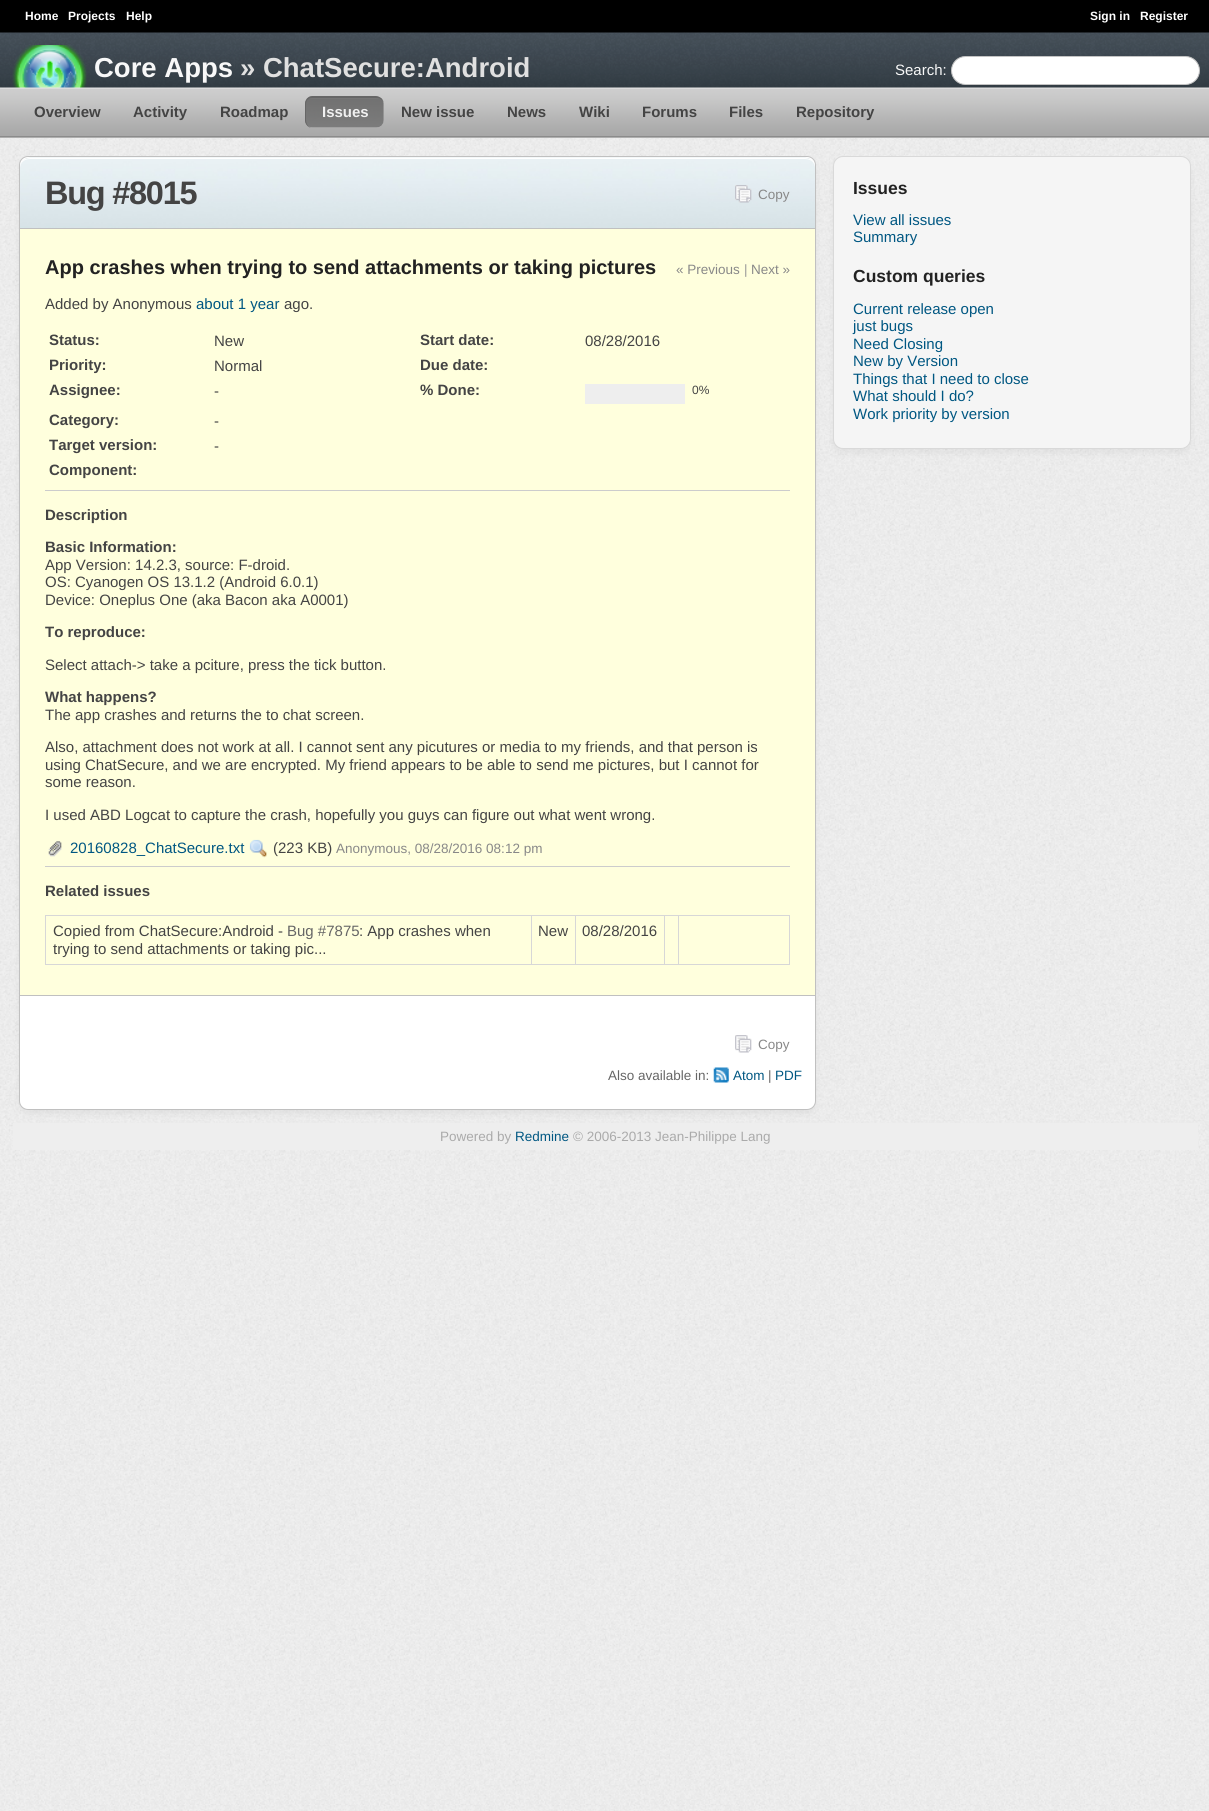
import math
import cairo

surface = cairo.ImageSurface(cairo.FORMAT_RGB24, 1209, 1811)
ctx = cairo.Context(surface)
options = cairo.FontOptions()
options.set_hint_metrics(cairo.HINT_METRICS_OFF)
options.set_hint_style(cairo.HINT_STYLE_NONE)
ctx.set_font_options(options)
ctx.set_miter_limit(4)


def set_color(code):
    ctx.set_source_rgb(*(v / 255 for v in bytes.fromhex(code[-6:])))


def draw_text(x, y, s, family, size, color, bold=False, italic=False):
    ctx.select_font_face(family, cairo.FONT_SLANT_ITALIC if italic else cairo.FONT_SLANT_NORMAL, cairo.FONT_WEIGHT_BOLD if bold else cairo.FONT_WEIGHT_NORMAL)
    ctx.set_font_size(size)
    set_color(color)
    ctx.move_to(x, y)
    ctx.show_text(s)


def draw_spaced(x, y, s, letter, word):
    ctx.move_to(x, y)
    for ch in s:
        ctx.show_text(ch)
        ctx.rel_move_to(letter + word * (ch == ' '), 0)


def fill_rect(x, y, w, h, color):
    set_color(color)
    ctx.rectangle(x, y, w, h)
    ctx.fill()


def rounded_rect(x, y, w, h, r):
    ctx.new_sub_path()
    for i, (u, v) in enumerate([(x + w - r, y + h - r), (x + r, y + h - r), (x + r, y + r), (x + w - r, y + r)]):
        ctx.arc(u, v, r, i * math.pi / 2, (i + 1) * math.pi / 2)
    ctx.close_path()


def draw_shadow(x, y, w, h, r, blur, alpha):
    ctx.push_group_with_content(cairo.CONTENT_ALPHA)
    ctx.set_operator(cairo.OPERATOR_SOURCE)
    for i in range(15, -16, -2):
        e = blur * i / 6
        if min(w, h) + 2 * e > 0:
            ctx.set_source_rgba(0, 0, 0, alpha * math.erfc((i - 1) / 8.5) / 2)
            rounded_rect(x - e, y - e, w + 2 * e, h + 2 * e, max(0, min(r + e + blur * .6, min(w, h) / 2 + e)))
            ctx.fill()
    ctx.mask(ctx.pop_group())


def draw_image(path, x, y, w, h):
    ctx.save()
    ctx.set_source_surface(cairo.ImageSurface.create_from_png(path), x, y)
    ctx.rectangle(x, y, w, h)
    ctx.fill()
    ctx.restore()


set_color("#ffffff")
ctx.paint()
draw_image("assets/img1.png", 0, 1150, 1209, 661)
draw_image("assets/img2.png", 0, 138, 1209, 1012)
fill_rect(0, 0, 1209, 33, "#000000")
draw_text(25, 20, "Home", "Liberation Sans", 12, "#ffffff", bold=True)
draw_text(68, 20, "Projects", "Liberation Sans", 12, "#ffffff", bold=True)
draw_text(126, 20, "Help", "Liberation Sans", 12, "#ffffff", bold=True)
draw_text(1090, 20, "Sign in", "Liberation Sans", 12, "#ffffff", bold=True)
draw_text(1140, 20, "Register", "Liberation Sans", 12, "#ffffff", bold=True)
draw_image("assets/img3.png", 0, 32, 1209, 56)
draw_image("assets/img4.png", 12, 45, 75, 43)
draw_text(94, 77, "Core Apps", "Liberation Sans", 27.5, "#f8f8f8", bold=True)
draw_text(240, 77, "» ChatSecure:Android", "Liberation Sans", 27.5, "#e0e0e0", bold=True)
draw_text(895, 75, "Search:", "Liberation Sans", 15, "#f8f8f8")
set_color("#ffffff")
rounded_rect(951.5, 56.5, 248, 28, 14)
ctx.fill_preserve()
set_color("#c3c3c3")
ctx.set_line_width(1)
ctx.stroke()
fill_rect(0, 137, 1209, 1, "#e0e0e0")
draw_image("assets/img5.png", 0, 87, 1209, 51)
draw_text(34, 117, "Overview", "Liberation Sans", 15, "#444444", bold=True)
draw_text(133, 117, "Activity", "Liberation Sans", 15, "#444444", bold=True)
draw_text(220, 117, "Roadmap", "Liberation Sans", 15, "#444444", bold=True)
draw_image("assets/img6.png", 305, 97, 79, 31)
set_color("#666666")
ctx.set_fill_rule(cairo.FILL_RULE_EVEN_ODD)
ctx.new_path()
ctx.move_to(312, 96)
ctx.line_to(376, 96)
ctx.curve_to(380, 96, 384, 100, 384, 104)
ctx.line_to(384, 120)
ctx.curve_to(384, 124, 380, 128, 376, 128)
ctx.line_to(312, 128)
ctx.curve_to(308, 128, 305, 124, 305, 120)
ctx.line_to(305, 104)
ctx.curve_to(305, 100, 308, 96, 312, 96)
ctx.close_path()
ctx.move_to(312, 98)
ctx.line_to(376, 98)
ctx.curve_to(380, 98, 384, 100, 384, 104)
ctx.line_to(384, 120)
ctx.curve_to(384, 124, 380, 128, 376, 128)
ctx.line_to(312, 128)
ctx.curve_to(309, 128, 306, 124, 306, 120)
ctx.line_to(306, 104)
ctx.curve_to(306, 100, 309, 98, 312, 98)
ctx.close_path()
ctx.fill()
draw_text(322, 117, "Issues", "Liberation Sans", 15, "#f0f0f0", bold=True)
draw_text(401, 117, "New issue", "Liberation Sans", 15, "#444444", bold=True)
draw_text(507, 117, "News", "Liberation Sans", 15, "#444444", bold=True)
draw_text(579, 117, "Wiki", "Liberation Sans", 15, "#444444", bold=True)
draw_text(642, 117, "Forums", "Liberation Sans", 15, "#444444", bold=True)
draw_text(729, 117, "Files", "Liberation Sans", 15, "#444444", bold=True)
draw_text(796, 117, "Repository", "Liberation Sans", 15, "#444444", bold=True)
set_color("#000000")
draw_shadow(19, 160, 797, 954, 9, 3, 0.05)
set_color("#ffffff")
rounded_rect(19.5, 156.5, 796, 953, 8.5)
ctx.fill_preserve()
set_color("#c0c0c0")
ctx.stroke()
draw_image("assets/img7.png", 20, 157, 795, 71)
set_color("#ffffff")
ctx.set_fill_rule(cairo.FILL_RULE_WINDING)
ctx.new_path()
ctx.move_to(30, 158)
ctx.curve_to(24, 158, 20, 162, 20, 168)
ctx.curve_to(20, 163, 24, 159, 30, 159)
ctx.line_to(805, 159)
ctx.curve_to(811, 159, 815, 163, 815, 168)
ctx.curve_to(815, 162, 811, 158, 805, 158)
ctx.close_path()
ctx.fill()
ctx.set_font_size(32.5)
set_color("#444444")
draw_spaced(45, 204, "Bug #8015", -1.25, 0)
draw_image("assets/img8.png", 735, 185, 17, 18)
draw_text(758, 199, "Copy", "Liberation Sans", 13.5, "#888888")
set_color("#ffffdd")
ctx.rectangle(19.5, 228.5, 796, 767)
ctx.fill_preserve()
set_color("#c0c0c0")
ctx.stroke()
draw_text(45, 274, "App crashes when trying to send attachments or taking pictures", "Liberation Sans", 20, "#222222", bold=True)
draw_text(676, 274, "« Previous", "Liberation Sans", 13.5, "#888888")
draw_text(744, 274, "|", "Liberation Sans", 13.5, "#999999")
draw_text(751, 274, "Next »", "Liberation Sans", 13.5, "#888888")
draw_text(45, 309, "Added by Anonymous", "Liberation Sans", 15, "#444444")
draw_text(196, 309, "about 1 year", "Liberation Sans", 15, "#005782")
draw_text(284, 309, "ago.", "Liberation Sans", 15, "#444444")
draw_text(49, 345, "Status:", "Liberation Sans", 15, "#444444", bold=True)
draw_text(214, 346, "New", "Liberation Sans", 15, "#444444")
draw_text(420, 345, "Start date:", "Liberation Sans", 15, "#444444", bold=True)
draw_text(585, 346, "08/28/2016", "Liberation Sans", 15, "#444444")
draw_text(49, 370, "Priority:", "Liberation Sans", 15, "#444444", bold=True)
draw_text(214, 371, "Normal", "Liberation Sans", 15, "#444444")
draw_text(420, 370, "Due date:", "Liberation Sans", 15, "#444444", bold=True)
draw_text(49, 395, "Assignee:", "Liberation Sans", 15, "#444444", bold=True)
draw_text(214, 396, "-", "Liberation Sans", 15, "#444444")
draw_text(420, 395, "% Done:", "Liberation Sans", 15, "#444444", bold=True)
fill_rect(585, 384, 100, 20, "#eeeeee")
draw_text(692, 394, "0%", "Liberation Sans", 12, "#444444")
draw_text(49, 425, "Category:", "Liberation Sans", 15, "#444444", bold=True)
draw_text(214, 426, "-", "Liberation Sans", 15, "#444444")
draw_text(49, 450, "Target version:", "Liberation Sans", 15, "#444444", bold=True)
draw_text(214, 451, "-", "Liberation Sans", 15, "#444444")
draw_text(49, 475, "Component:", "Liberation Sans", 15, "#444444", bold=True)
fill_rect(45, 490, 745, 1, "#cccccc")
draw_text(45, 520, "Description", "Liberation Sans", 15, "#444444", bold=True)
draw_text(45, 552, "Basic Information:", "Liberation Sans", 15, "#444444", bold=True)
draw_text(45, 570, "App Version: 14.2.3, source: F-droid.", "Liberation Sans", 15, "#444444")
draw_text(45, 587, "OS: Cyanogen OS 13.1.2 (Android 6.0.1)", "Liberation Sans", 15, "#444444")
draw_text(45, 605, "Device: Oneplus One (aka Bacon aka A0001)", "Liberation Sans", 15, "#444444")
draw_text(45, 637, "To reproduce:", "Liberation Sans", 15, "#444444", bold=True)
draw_text(45, 670, "Select attach-> take a pciture, press the tick button.", "Liberation Sans", 15, "#444444")
draw_text(45, 702, "What happens?", "Liberation Sans", 15, "#444444", bold=True)
draw_text(45, 720, "The app crashes and returns the to chat screen.", "Liberation Sans", 15, "#444444")
draw_text(45, 752, "Also, attachment does not work at all. I cannot sent any picutures or media to my friends, and that person is", "Liberation Sans", 15, "#444444")
draw_text(45, 770, "using ChatSecure, and we are encrypted. My friend appears to be able to send me pictures, but I cannot for", "Liberation Sans", 15, "#444444")
draw_text(45, 787, "some reason.", "Liberation Sans", 15, "#444444")
draw_text(45, 820, "I used ABD Logcat to capture the crash, hopefully you guys can figure out what went wrong.", "Liberation Sans", 15, "#444444")
draw_image("assets/img9.png", 48, 841, 14, 16)
draw_text(70, 853, "20160828_ChatSecure.txt", "Liberation Sans", 15, "#005782")
draw_image("assets/img10.png", 249, 839, 18, 19)
draw_text(273, 853, "(223 KB)", "Liberation Sans", 15, "#444444")
draw_text(336, 853, "Anonymous, 08/28/2016 08:12 pm", "Liberation Sans", 13.5, "#888888")
fill_rect(45, 866, 745, 1, "#cccccc")
draw_text(45, 896, "Related issues", "Liberation Sans", 15, "#444444", bold=True)
fill_rect(678, 915, 112, 1, "#d7d7d7")
fill_rect(789, 915, 1, 50, "#d7d7d7")
fill_rect(678, 964, 112, 1, "#d7d7d7")
fill_rect(678, 915, 1, 50, "#d7d7d7")
fill_rect(664, 915, 15, 1, "#d7d7d7")
fill_rect(664, 964, 15, 1, "#d7d7d7")
fill_rect(664, 915, 1, 50, "#d7d7d7")
fill_rect(575, 915, 90, 1, "#d7d7d7")
fill_rect(575, 964, 90, 1, "#d7d7d7")
fill_rect(575, 915, 1, 50, "#d7d7d7")
fill_rect(531, 915, 45, 1, "#d7d7d7")
fill_rect(531, 964, 45, 1, "#d7d7d7")
fill_rect(531, 915, 1, 50, "#d7d7d7")
fill_rect(45, 915, 488, 1, "#d7d7d7")
fill_rect(45, 964, 488, 1, "#d7d7d7")
fill_rect(45, 915, 1, 50, "#d7d7d7")
draw_text(53, 936, "Copied from ChatSecure:Android -", "Liberation Sans", 15, "#444444")
draw_text(287, 936, "Bug #7875", "Liberation Sans", 15, "#666666")
draw_text(359, 936, ": App crashes when", "Liberation Sans", 15, "#444444")
draw_text(53, 954, "trying to send attachments or taking pic...", "Liberation Sans", 15, "#444444")
draw_text(538, 936, "New", "Liberation Sans", 15, "#444444")
draw_text(582, 936, "08/28/2016", "Liberation Sans", 15, "#444444")
draw_image("assets/img11.png", 735, 1035, 17, 18)
draw_text(758, 1049, "Copy", "Liberation Sans", 13.5, "#888888")
draw_text(608, 1080, "Also available in:", "Liberation Sans", 13.5, "#666666")
draw_image("assets/img12.png", 713, 1067, 16, 16)
draw_text(733, 1080, "Atom", "Liberation Sans", 13.5, "#005782")
draw_text(768, 1080, "|", "Liberation Sans", 13.5, "#666666")
draw_text(775, 1080, "PDF", "Liberation Sans", 13.5, "#005782")
set_color("#000000")
draw_shadow(833, 160, 358, 293, 10, 3, 0.05)
set_color("#f5f5f5")
rounded_rect(833.5, 156.5, 357, 292, 9.5)
ctx.fill_preserve()
set_color("#d9d9d9")
ctx.stroke()
draw_text(853, 194, "Issues", "Liberation Sans", 17.5, "#222222", bold=True)
draw_text(853, 225, "View all issues", "Liberation Sans", 15, "#005782")
draw_text(853, 242, "Summary", "Liberation Sans", 15, "#005782")
draw_text(853, 282, "Custom queries", "Liberation Sans", 17.5, "#222222", bold=True)
draw_text(853, 314, "Current release open", "Liberation Sans", 15, "#005782")
draw_text(853, 331, "just bugs", "Liberation Sans", 15, "#005782")
draw_text(853, 349, "Need Closing", "Liberation Sans", 15, "#005782")
draw_text(853, 366, "New by Version", "Liberation Sans", 15, "#005782")
draw_text(853, 384, "Things that I need to close", "Liberation Sans", 15, "#005782")
draw_text(853, 401, "What should I do?", "Liberation Sans", 15, "#005782")
draw_text(853, 419, "Work priority by version", "Liberation Sans", 15, "#005782")
fill_rect(13, 1123, 1185, 27, "#eeeeee")
draw_text(440, 1141, "Powered by", "Liberation Sans", 13.5, "#aaaaaa")
draw_text(515, 1141, "Redmine", "Liberation Sans", 13.5, "#005782")
draw_text(573, 1141, "© 2006-2013 Jean-Philippe Lang", "Liberation Sans", 13.5, "#aaaaaa")
surface.write_to_png("output.png")
